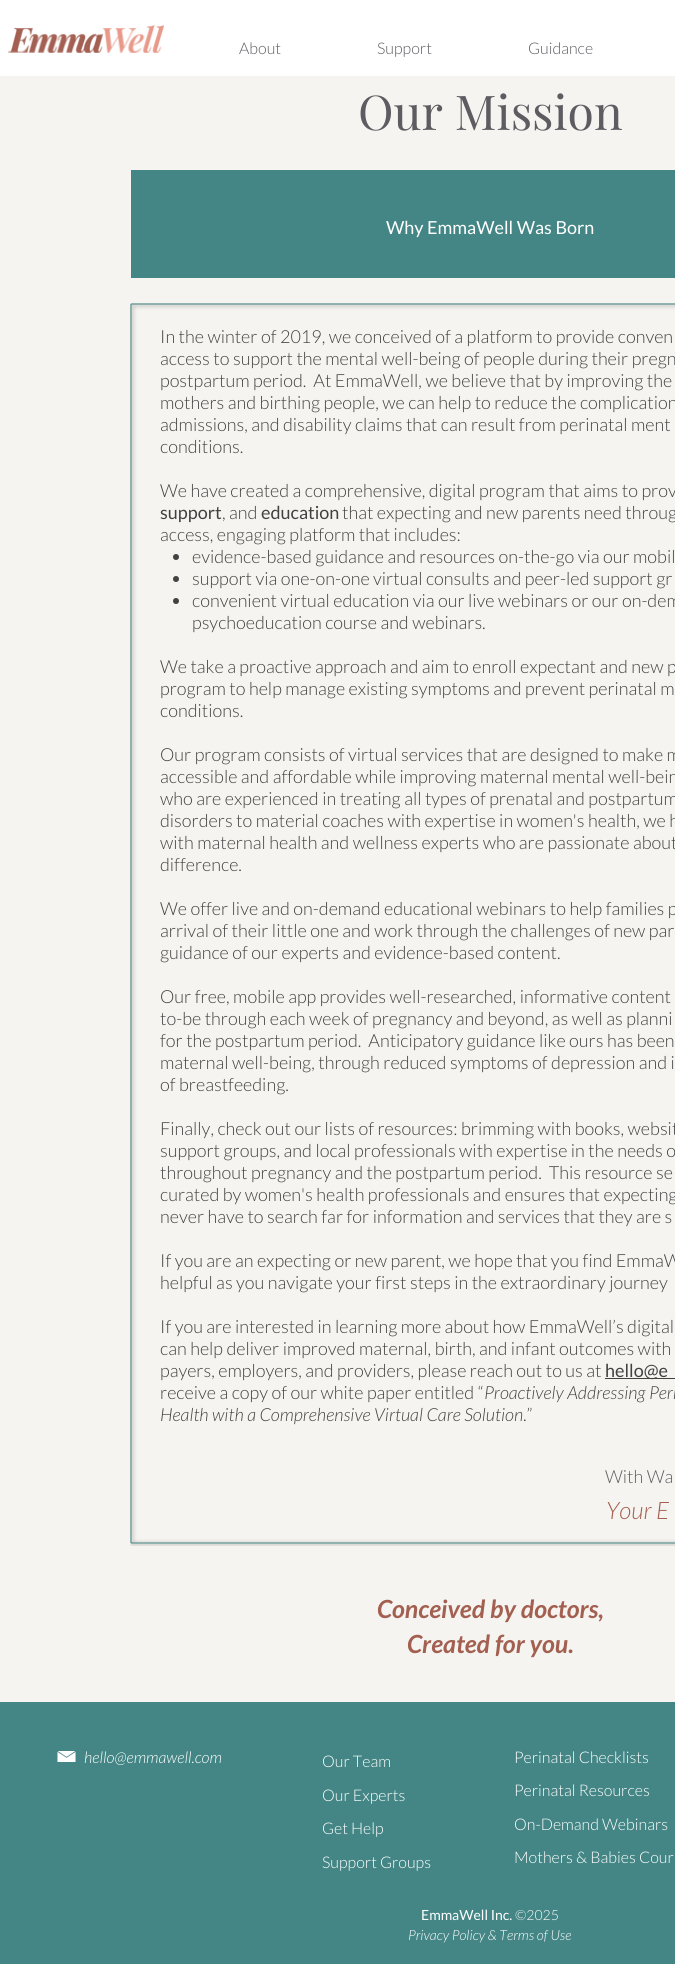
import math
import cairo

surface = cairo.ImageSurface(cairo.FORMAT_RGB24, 675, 1964)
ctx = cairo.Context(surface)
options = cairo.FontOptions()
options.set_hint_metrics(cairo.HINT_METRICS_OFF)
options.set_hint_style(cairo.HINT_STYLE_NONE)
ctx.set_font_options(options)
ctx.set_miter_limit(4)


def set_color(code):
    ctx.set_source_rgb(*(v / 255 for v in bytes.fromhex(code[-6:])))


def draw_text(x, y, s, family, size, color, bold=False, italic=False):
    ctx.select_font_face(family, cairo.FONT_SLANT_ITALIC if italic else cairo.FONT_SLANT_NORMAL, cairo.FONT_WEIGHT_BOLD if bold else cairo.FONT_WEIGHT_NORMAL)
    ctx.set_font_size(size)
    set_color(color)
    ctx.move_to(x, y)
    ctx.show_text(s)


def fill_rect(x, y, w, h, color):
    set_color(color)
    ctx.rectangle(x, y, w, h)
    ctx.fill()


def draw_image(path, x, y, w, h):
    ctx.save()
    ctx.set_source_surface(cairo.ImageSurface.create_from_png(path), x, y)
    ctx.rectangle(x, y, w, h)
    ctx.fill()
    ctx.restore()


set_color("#f5f4f0")
ctx.paint()
fill_rect(0, 0, 675, 76, "#ffffff")
draw_image("assets/img1.png", 8, 25, 156, 28)
draw_text(239, 54, "About", "Lato Light", 16, "#5e5c61")
draw_text(377, 54, "Support", "Lato Light", 16, "#5e5c61")
draw_text(528, 54, "Guidance", "Lato Light", 16, "#5e5c61")
draw_text(358, 130, "Our Mission", "Playfair Display", 48, "#5e5c61")
fill_rect(131, 170, 544, 108, "#438685")
draw_text(386, 234, "Why EmmaWell Was Born", "Lato", 18, "#ffffff")
draw_image("assets/img2.png", 130, 303, 545, 1243)
draw_text(160, 343, "In the winter of 2019, we conceived of a platform to provide conven", "Lato Light", 18, "#414141")
draw_text(160, 365, "access to support the mental well-being of people during their pregn", "Lato Light", 18, "#414141")
draw_text(160, 387, "postpartum period.  At EmmaWell, we believe that by improving the", "Lato Light", 18, "#414141")
draw_text(160, 409, "mothers and birthing people, we can help to reduce the complication", "Lato Light", 18, "#414141")
draw_text(160, 431, "admissions, and disability claims that can result from perinatal ment", "Lato Light", 18, "#414141")
draw_text(160, 453, "conditions.", "Lato Light", 18, "#414141")
draw_text(160, 497, "We have created a comprehensive, digital program that aims to prov", "Lato Light", 18, "#414141")
draw_text(160, 519, "support", "Lato", 18, "#414141")
draw_text(222, 519, ", and", "Lato Light", 18, "#414141")
draw_text(261, 519, "education", "Lato", 18, "#414141")
draw_text(342, 519, "that expecting and new parents need throug", "Lato Light", 18, "#414141")
draw_text(160, 541, "access, engaging platform that includes:", "Lato Light", 18, "#414141")
ctx.new_path()
ctx.arc(176, 557, 3, 0, 2 * math.pi)
ctx.fill()
draw_text(192, 563, "evidence-based guidance and resources on-the-go via our mobil", "Lato Light", 18, "#414141")
ctx.new_path()
ctx.arc(176, 579, 3, 0, 2 * math.pi)
ctx.fill()
draw_text(192, 585, "support via one-on-one virtual consults and peer-led support gr", "Lato Light", 18, "#414141")
ctx.new_path()
ctx.arc(176, 601, 3, 0, 2 * math.pi)
ctx.fill()
draw_text(192, 607, "convenient virtual education via our live webinars or our on-dem", "Lato Light", 18, "#414141")
draw_text(192, 629, "psychoeducation course and webinars.", "Lato Light", 18, "#414141")
draw_text(160, 673, "We take a proactive approach and aim to enroll expectant and new p", "Lato Light", 18, "#414141")
draw_text(160, 695, "program to help manage existing symptoms and prevent perinatal m", "Lato Light", 18, "#414141")
draw_text(160, 717, "conditions.", "Lato Light", 18, "#414141")
draw_text(160, 761, "Our program consists of virtual services that are designed to make m", "Lato Light", 18, "#414141")
draw_text(160, 783, "accessible and affordable while improving maternal mental well-bein", "Lato Light", 18, "#414141")
draw_text(160, 805, "who are experienced in treating all types of prenatal and postpartum", "Lato Light", 18, "#414141")
draw_text(160, 827, "disorders to material coaches with expertise in women's health, we h", "Lato Light", 18, "#414141")
draw_text(160, 849, "with maternal health and wellness experts who are passionate about", "Lato Light", 18, "#414141")
draw_text(160, 871, "difference.", "Lato Light", 18, "#414141")
draw_text(160, 915, "We offer live and on-demand educational webinars to help families p", "Lato Light", 18, "#414141")
draw_text(160, 937, "arrival of their little one and work through the challenges of new par", "Lato Light", 18, "#414141")
draw_text(160, 959, "guidance of our experts and evidence-based content.", "Lato Light", 18, "#414141")
draw_text(160, 1003, "Our free, mobile app provides well-researched, informative content", "Lato Light", 18, "#414141")
draw_text(160, 1025, "to-be through each week of pregnancy and beyond, as well as planni", "Lato Light", 18, "#414141")
draw_text(160, 1047, "for the postpartum period.  Anticipatory guidance like ours has been", "Lato Light", 18, "#414141")
draw_text(160, 1069, "maternal well-being, through reduced symptoms of depression and i", "Lato Light", 18, "#414141")
draw_text(160, 1091, "of breastfeeding.", "Lato Light", 18, "#414141")
draw_text(160, 1135, "Finally, check out our lists of resources: brimming with books, websit", "Lato Light", 18, "#414141")
draw_text(160, 1157, "support groups, and local professionals with expertise in the needs o", "Lato Light", 18, "#414141")
draw_text(160, 1179, "throughout pregnancy and the postpartum period.  This resource se", "Lato Light", 18, "#414141")
draw_text(160, 1201, "curated by women's health professionals and ensures that expecting", "Lato Light", 18, "#414141")
draw_text(160, 1223, "never have to search far for information and services that they are s", "Lato Light", 18, "#414141")
draw_text(160, 1267, "If you are an expecting or new parent, we hope that you find EmmaW", "Lato Light", 18, "#414141")
draw_text(160, 1289, "helpful as you navigate your first steps in the extraordinary journey", "Lato Light", 18, "#414141")
draw_text(160, 1333, "If you are interested in learning more about how EmmaWell’s digital", "Lato Light", 18, "#414141")
draw_text(160, 1355, "can help deliver improved maternal, birth, and infant outcomes with", "Lato Light", 18, "#414141")
draw_text(160, 1377, "payers, employers, and providers, please reach out to us at", "Lato Light", 18, "#414141")
fill_rect(605, 1378, 70, 1, "#414141")
draw_text(605, 1377, "hello@e", "Lato", 18, "#414141")
draw_text(160, 1399, "receive a copy of our white paper entitled “", "Lato Light", 18, "#414141")
draw_text(484, 1399, "Proactively Addressing Peri", "Lato Light", 18, "#414141", italic=True)
draw_text(160, 1421, "Health with a Comprehensive Virtual Care Solution", "Lato Light", 18, "#414141", italic=True)
draw_text(523, 1421, ".”", "Lato Light", 18, "#414141")
draw_text(605, 1483, "With Wa", "Lato Light", 18, "#5e5c61")
draw_text(606, 1519, "Your E", "Lato Light", 24, "#a35f50", italic=True)
draw_text(377, 1618, "Conceived by doctors,", "Lato", 25, "#a35f50", bold=True, italic=True)
draw_text(407, 1653, "Created for you.", "Lato", 25, "#a35f50", bold=True, italic=True)
fill_rect(0, 1702, 675, 262, "#438685")
draw_image("assets/img3.png", 57, 1751, 19, 11)
draw_text(84, 1763, "hello@emmawell.com", "Lato Light", 16, "#ffffff", italic=True)
draw_text(322, 1767, "Our Team", "Lato Light", 16, "#ffffff")
draw_text(514, 1763, "Perinatal Checklists", "Lato Light", 16, "#ffffff")
draw_text(322, 1801, "Our Experts", "Lato Light", 16, "#ffffff")
draw_text(514, 1796, "Perinatal Resources", "Lato Light", 16, "#ffffff")
draw_text(322, 1834, "Get Help", "Lato Light", 16, "#ffffff")
draw_text(514, 1830, "On-Demand Webinars", "Lato Light", 16, "#ffffff")
draw_text(322, 1868, "Support Groups", "Lato Light", 16, "#ffffff")
draw_text(514, 1863, "Mothers & Babies Cour", "Lato Light", 16, "#ffffff")
draw_text(421, 1920, "EmmaWell Inc.", "Lato", 14, "#ffffff")
draw_text(515, 1920, "©2025", "Lato Light", 14, "#ffffff")
draw_text(408, 1940, "Privacy Policy & Terms of Use", "Lato Light", 14, "#ffffff", italic=True)
surface.write_to_png("output.png")
